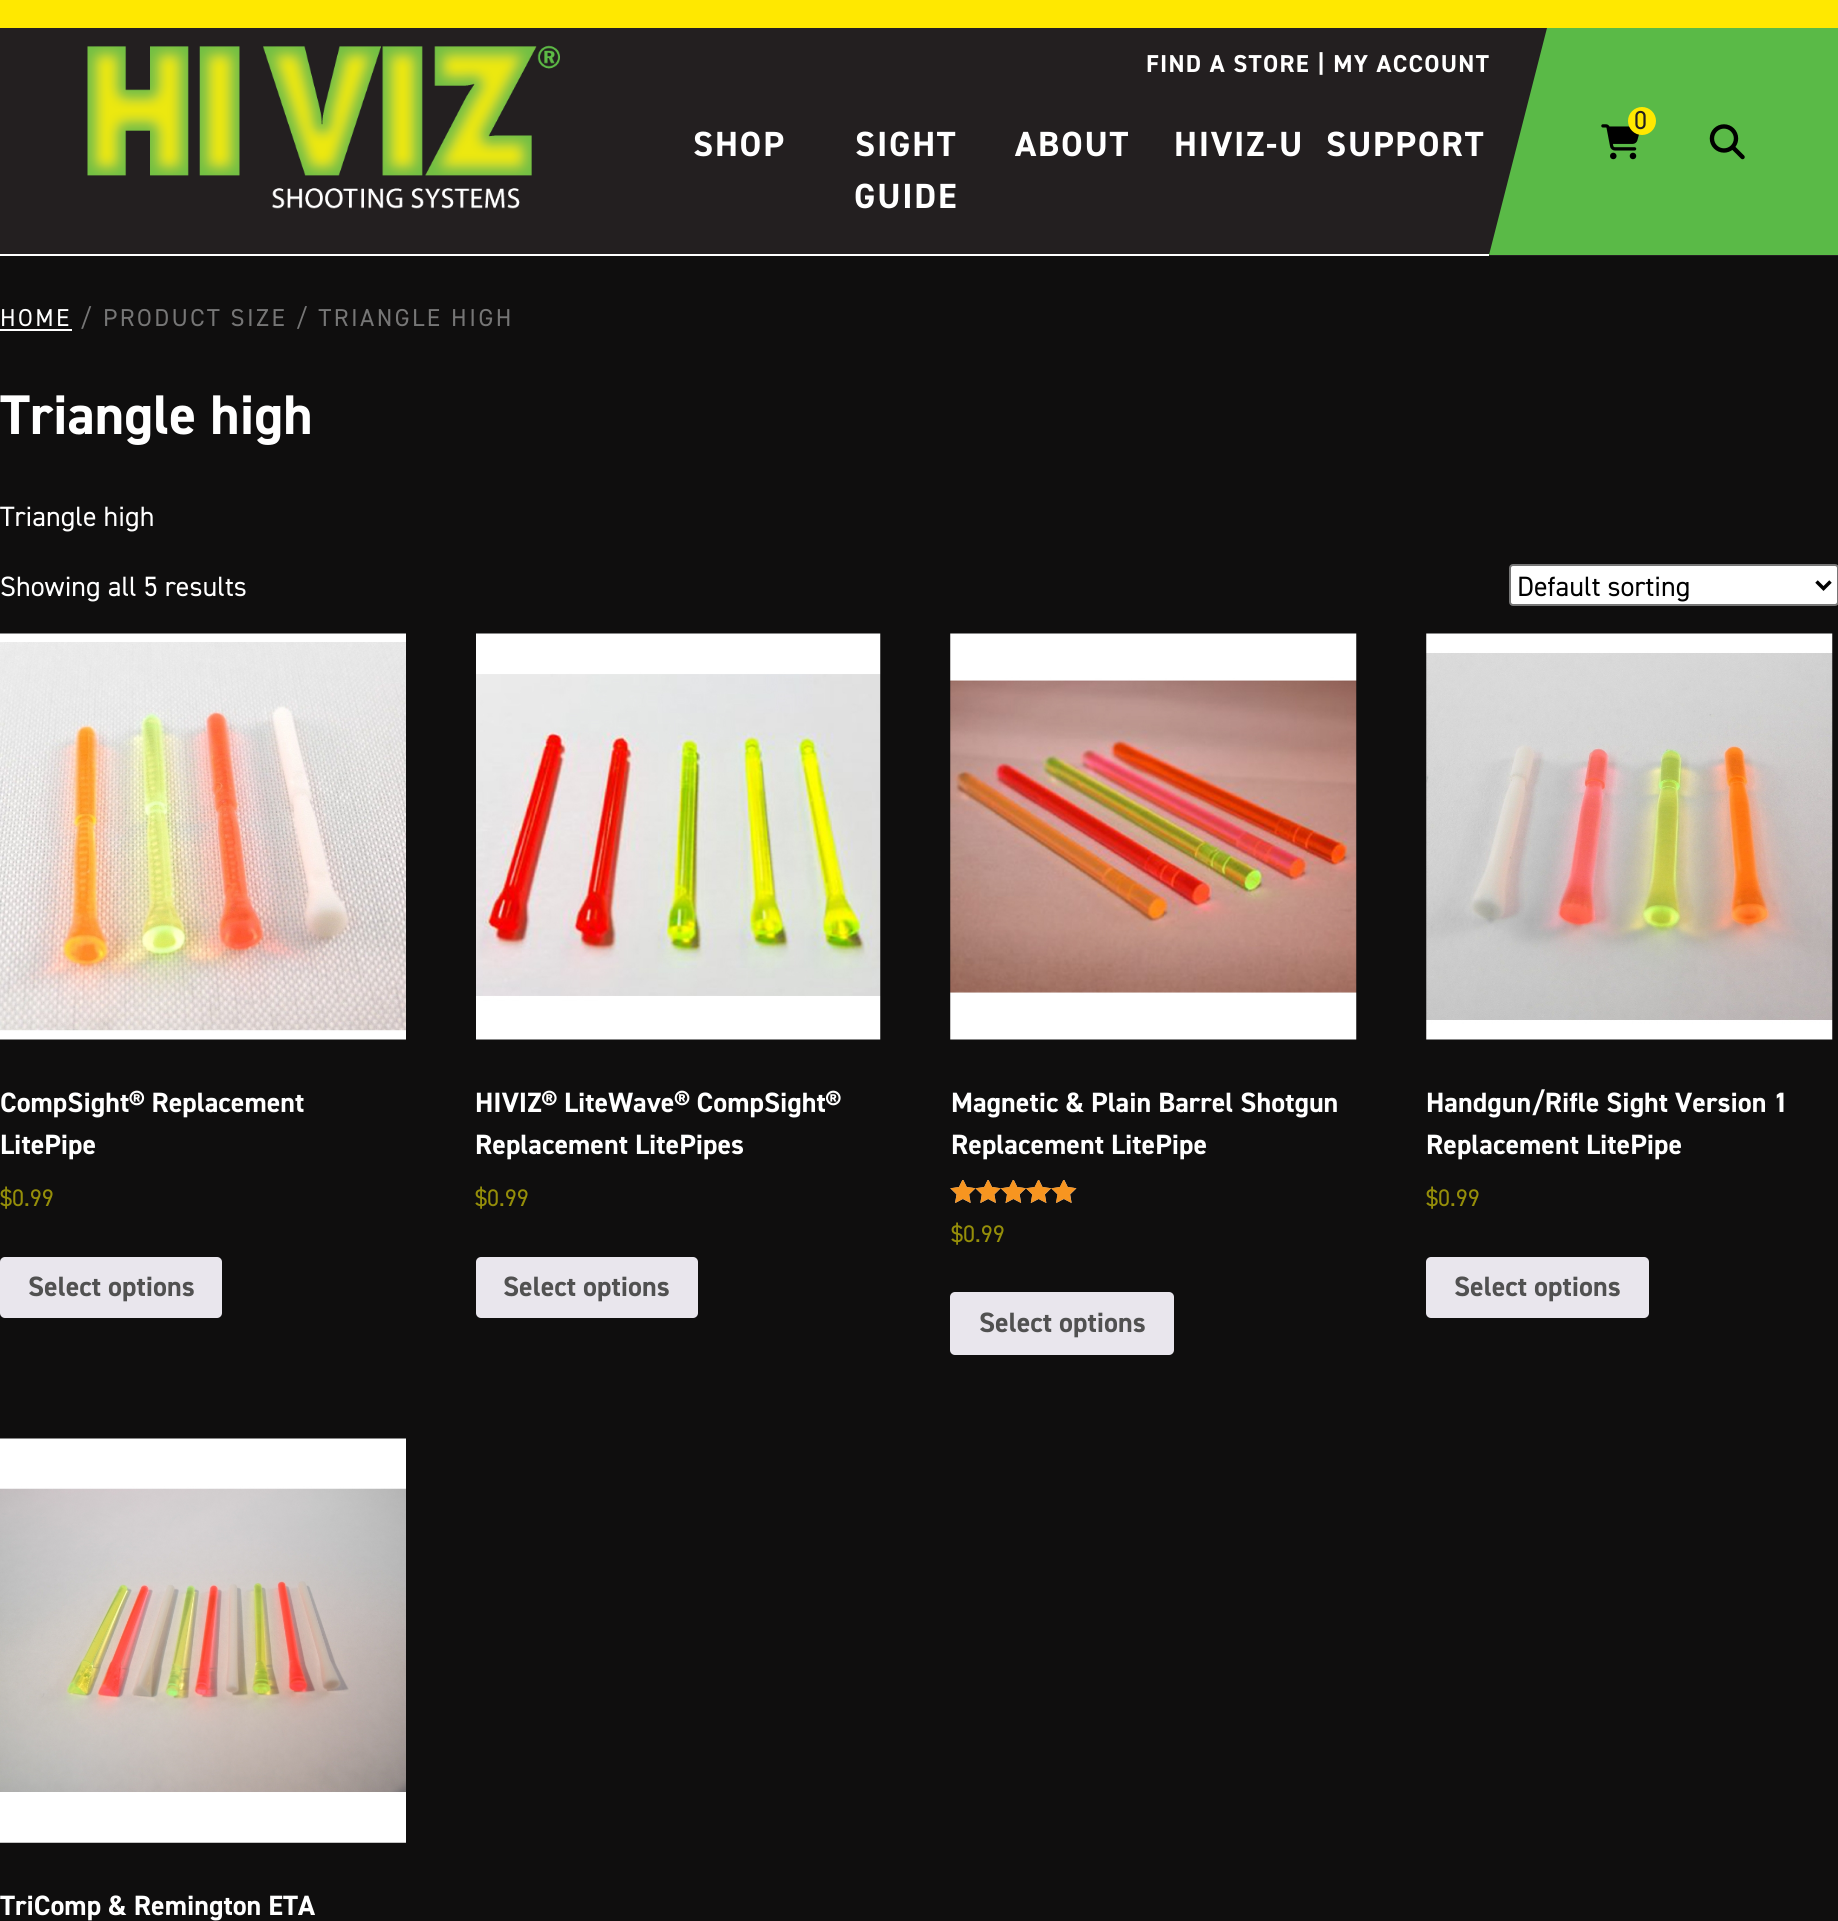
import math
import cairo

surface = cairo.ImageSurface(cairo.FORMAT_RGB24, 1838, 1921)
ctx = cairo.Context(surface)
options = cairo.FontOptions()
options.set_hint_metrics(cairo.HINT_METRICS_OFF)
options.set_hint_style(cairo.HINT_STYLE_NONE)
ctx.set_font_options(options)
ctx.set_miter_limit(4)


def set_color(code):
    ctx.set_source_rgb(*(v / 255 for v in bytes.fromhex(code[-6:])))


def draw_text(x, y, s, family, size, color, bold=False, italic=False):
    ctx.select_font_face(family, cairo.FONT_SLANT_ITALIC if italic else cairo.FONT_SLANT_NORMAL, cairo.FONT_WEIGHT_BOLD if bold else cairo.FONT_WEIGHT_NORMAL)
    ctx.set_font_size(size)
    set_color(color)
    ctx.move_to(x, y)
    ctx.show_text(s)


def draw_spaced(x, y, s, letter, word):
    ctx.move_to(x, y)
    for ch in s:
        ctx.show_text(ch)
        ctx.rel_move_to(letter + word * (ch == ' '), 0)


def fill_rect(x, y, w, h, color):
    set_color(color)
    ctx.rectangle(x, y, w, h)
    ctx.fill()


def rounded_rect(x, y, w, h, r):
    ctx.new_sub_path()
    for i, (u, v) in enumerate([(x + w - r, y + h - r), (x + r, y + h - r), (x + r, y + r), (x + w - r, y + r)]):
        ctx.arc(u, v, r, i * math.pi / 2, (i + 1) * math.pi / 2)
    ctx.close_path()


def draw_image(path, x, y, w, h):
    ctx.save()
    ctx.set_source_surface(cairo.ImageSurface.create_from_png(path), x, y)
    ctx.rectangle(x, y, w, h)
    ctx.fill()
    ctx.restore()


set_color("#0f0e0e")
ctx.paint()
fill_rect(0, 0, 1838, 28, "#ffe800")
fill_rect(0, 28, 1838, 228, "#231f20")
fill_rect(0, 254, 1489, 2, "#ffffff")
draw_image("assets/img1.png", 87, 45, 473, 164)
ctx.select_font_face("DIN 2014", cairo.FONT_SLANT_NORMAL, cairo.FONT_WEIGHT_BOLD)
ctx.set_font_size(24.5)
draw_spaced(1146, 72, "FIND A STORE | MY ACCOUNT", 1.25, 0)
ctx.set_font_size(35)
draw_spaced(693, 156, "SHOP", 1.75, 0)
draw_spaced(855, 156, "SIGHT", 1.75, 0)
draw_spaced(854, 208, "GUIDE", 1.75, 0)
draw_spaced(1015, 156, "ABOUT", 1.75, 0)
draw_spaced(1174, 156, "HIVIZ-U", 1.75, 0)
draw_spaced(1326, 156, "SUPPORT", 1.75, 0)
set_color("#5aba47")
ctx.new_path()
ctx.move_to(1547, 28)
ctx.line_to(1489, 255)
ctx.line_to(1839, 255)
ctx.line_to(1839, 28)
ctx.close_path()
ctx.fill()
draw_image("assets/img2.png", 1601, 124, 38, 36)
set_color("#ffe800")
ctx.arc(1642, 121, 14, 0, 2 * math.pi)
ctx.fill()
draw_text(1634, 129, "0", "DIN 2014", 26, "#231f20")
draw_image("assets/img3.png", 1709, 124, 36, 36)
ctx.set_font_size(24.5)
set_color("#ffffff")
draw_spaced(0, 326, "HOME", 2.45, 0)
fill_rect(0, 329, 72, 2, "#ffffff")
set_color("#767676")
draw_spaced(80, 326, "/ PRODUCT SIZE / TRIANGLE HIGH", 2.45, 0)
draw_text(0, 434, "Triangle high", "DIN 2014", 56, "#ffffff", bold=True)
draw_text(0, 526, "Triangle high", "DIN 2014", 28, "#ffffff")
draw_text(0, 596, "Showing all 5 results", "DIN 2014", 28, "#ffffff")
rounded_rect(1510, 565, 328, 40, 3)
ctx.fill_preserve()
set_color("#767676")
ctx.stroke()
ctx.new_path()
ctx.move_to(1816.5, 581.5)
ctx.line_to(1823.5, 588.5)
ctx.line_to(1830.5, 581.5)
set_color("#000000")
ctx.set_line_width(3.5)
ctx.stroke()
draw_text(1517, 596, "Default sorting", "DIN 2014", 28, "#000000")
draw_image("assets/img4.png", 0, 633, 406, 407)
draw_text(0, 1112, "CompSight® Replacement", "DIN 2014", 28, "#ffffff", bold=True)
draw_text(0, 1154, "LitePipe", "DIN 2014", 28, "#ffffff", bold=True)
draw_text(0, 1206, "$0.99", "DIN 2014", 24, "#958e09")
set_color("#e9e6ed")
rounded_rect(0, 1257, 222, 61, 5)
ctx.fill()
draw_text(28, 1296, "Select options", "DIN 2014", 28, "#515151", bold=True)
draw_image("assets/img5.png", 476, 633, 405, 407)
draw_text(475, 1112, "HIVIZ® LiteWave® CompSight®", "DIN 2014", 28, "#ffffff", bold=True)
draw_text(475, 1154, "Replacement LitePipes", "DIN 2014", 28, "#ffffff", bold=True)
draw_text(475, 1206, "$0.99", "DIN 2014", 24, "#958e09")
set_color("#e9e6ed")
rounded_rect(476, 1257, 222, 61, 5)
ctx.fill()
draw_text(503, 1296, "Select options", "DIN 2014", 28, "#515151", bold=True)
draw_image("assets/img6.png", 950, 633, 407, 407)
draw_text(951, 1112, "Magnetic & Plain Barrel Shotgun", "DIN 2014", 28, "#ffffff", bold=True)
draw_text(951, 1154, "Replacement LitePipe", "DIN 2014", 28, "#ffffff", bold=True)
draw_image("assets/img7.png", 950, 1180, 127, 23)
draw_image("assets/img8.png", 950, 1180, 127, 23)
draw_text(951, 1242, "$0.99", "DIN 2014", 24, "#958e09")
set_color("#e9e6ed")
rounded_rect(950, 1292, 224, 63, 5)
ctx.fill()
draw_text(979, 1332, "Select options", "DIN 2014", 28, "#515151", bold=True)
draw_image("assets/img9.png", 1426, 633, 407, 407)
draw_text(1426, 1112, "Handgun/Rifle Sight Version 1", "DIN 2014", 28, "#ffffff", bold=True)
draw_text(1426, 1154, "Replacement LitePipe", "DIN 2014", 28, "#ffffff", bold=True)
draw_text(1426, 1206, "$0.99", "DIN 2014", 24, "#958e09")
set_color("#e9e6ed")
rounded_rect(1426, 1257, 223, 61, 5)
ctx.fill()
draw_text(1454, 1296, "Select options", "DIN 2014", 28, "#515151", bold=True)
draw_image("assets/img10.png", 0, 1438, 406, 405)
draw_text(0, 1915, "TriComp & Remington ETA", "DIN 2014", 28, "#ffffff", bold=True)
surface.write_to_png("output.png")
